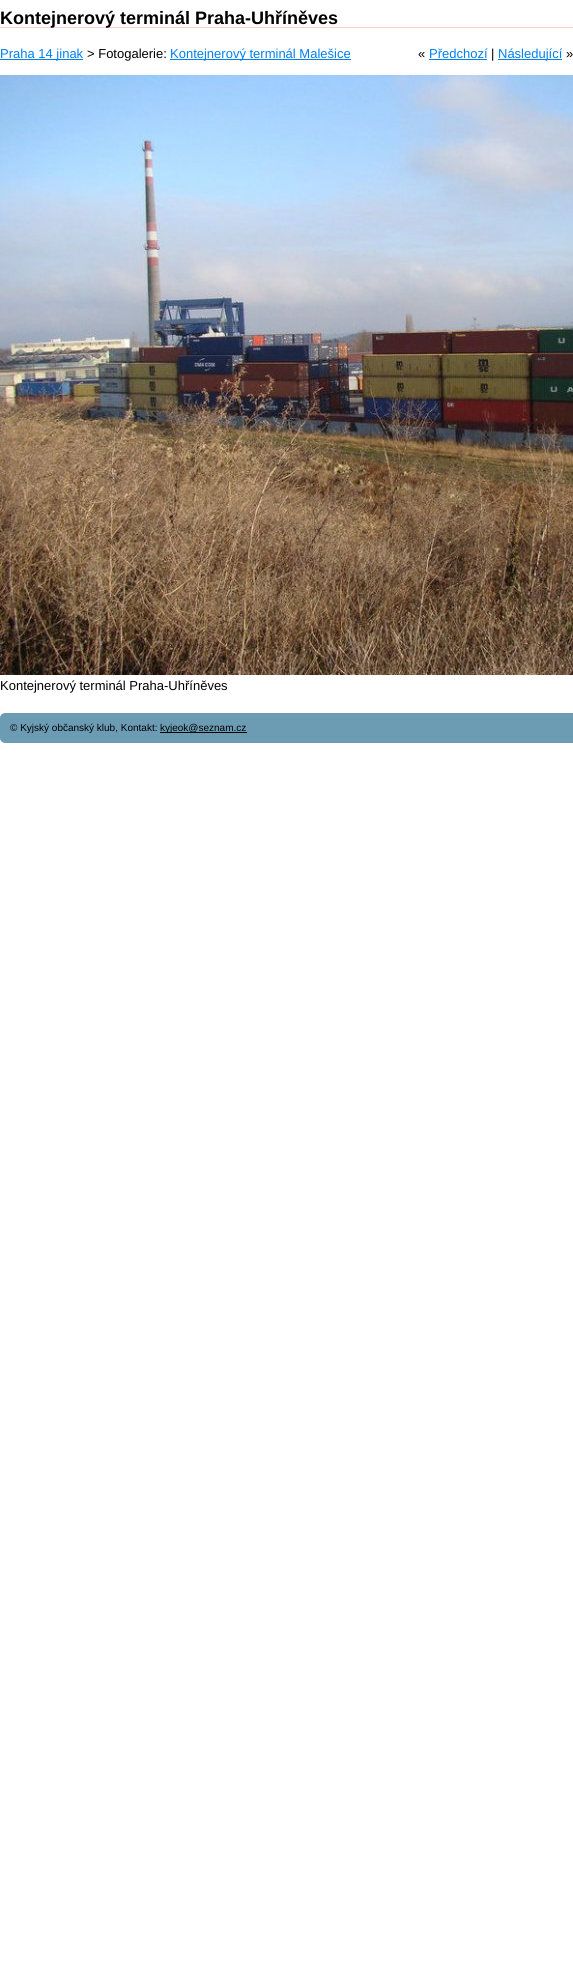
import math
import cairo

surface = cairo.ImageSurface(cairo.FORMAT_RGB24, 573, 1963)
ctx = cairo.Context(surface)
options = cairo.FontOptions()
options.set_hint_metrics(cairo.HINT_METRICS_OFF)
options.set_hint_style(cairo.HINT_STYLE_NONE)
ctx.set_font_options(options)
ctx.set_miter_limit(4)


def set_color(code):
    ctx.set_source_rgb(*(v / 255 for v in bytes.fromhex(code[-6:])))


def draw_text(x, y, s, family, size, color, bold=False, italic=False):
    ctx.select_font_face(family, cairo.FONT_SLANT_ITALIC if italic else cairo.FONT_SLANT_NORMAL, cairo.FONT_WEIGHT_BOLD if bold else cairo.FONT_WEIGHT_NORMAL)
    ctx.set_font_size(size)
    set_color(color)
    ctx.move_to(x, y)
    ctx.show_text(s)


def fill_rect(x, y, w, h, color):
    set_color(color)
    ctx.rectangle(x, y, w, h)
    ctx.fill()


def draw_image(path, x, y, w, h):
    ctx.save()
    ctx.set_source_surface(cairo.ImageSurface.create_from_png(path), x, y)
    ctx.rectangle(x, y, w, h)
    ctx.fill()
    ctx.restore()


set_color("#ffffff")
ctx.paint()
fill_rect(0, 27, 573, 1, "#ffcfcf")
draw_text(0, 24, "Kontejnerový terminál Praha-Uhříněves", "Liberation Sans", 18, "#000000", bold=True)
fill_rect(0, 59, 83, 1, "#007ff0")
draw_text(0, 58, "Praha 14 jinak", "Liberation Sans", 13, "#007ff0")
draw_text(87, 58, "> Fotogalerie:", "Liberation Sans", 13, "#000000")
fill_rect(170, 59, 181, 1, "#007ff0")
draw_text(170, 58, "Kontejnerový terminál Malešice", "Liberation Sans", 13, "#007ff0")
draw_text(418, 58, "«", "Liberation Sans", 13, "#000000")
draw_text(429, 58, "Předchozí", "Liberation Sans", 13, "#007ff0")
fill_rect(429, 59, 58, 1, "#007ff0")
draw_text(491, 58, "|", "Liberation Sans", 13, "#000000")
fill_rect(498, 59, 64, 1, "#007ff0")
draw_text(498, 58, "Následující", "Liberation Sans", 13, "#007ff0")
draw_text(566, 58, "»", "Liberation Sans", 13, "#000000")
draw_image("assets/img1.png", 0, 75, 573, 600)
draw_text(0, 690, "Kontejnerový terminál Praha-Uhříněves", "Liberation Sans", 13, "#000000")
draw_image("assets/img2.png", 0, 713, 573, 30)
draw_text(10, 731, "© Kyjský občanský klub, Kontakt:", "Liberation Sans", 10, "#000000")
fill_rect(160, 732, 87, 1, "#000000")
draw_text(160, 731, "kyjeok@seznam.cz", "Liberation Sans", 10, "#000000")
surface.write_to_png("output.png")
